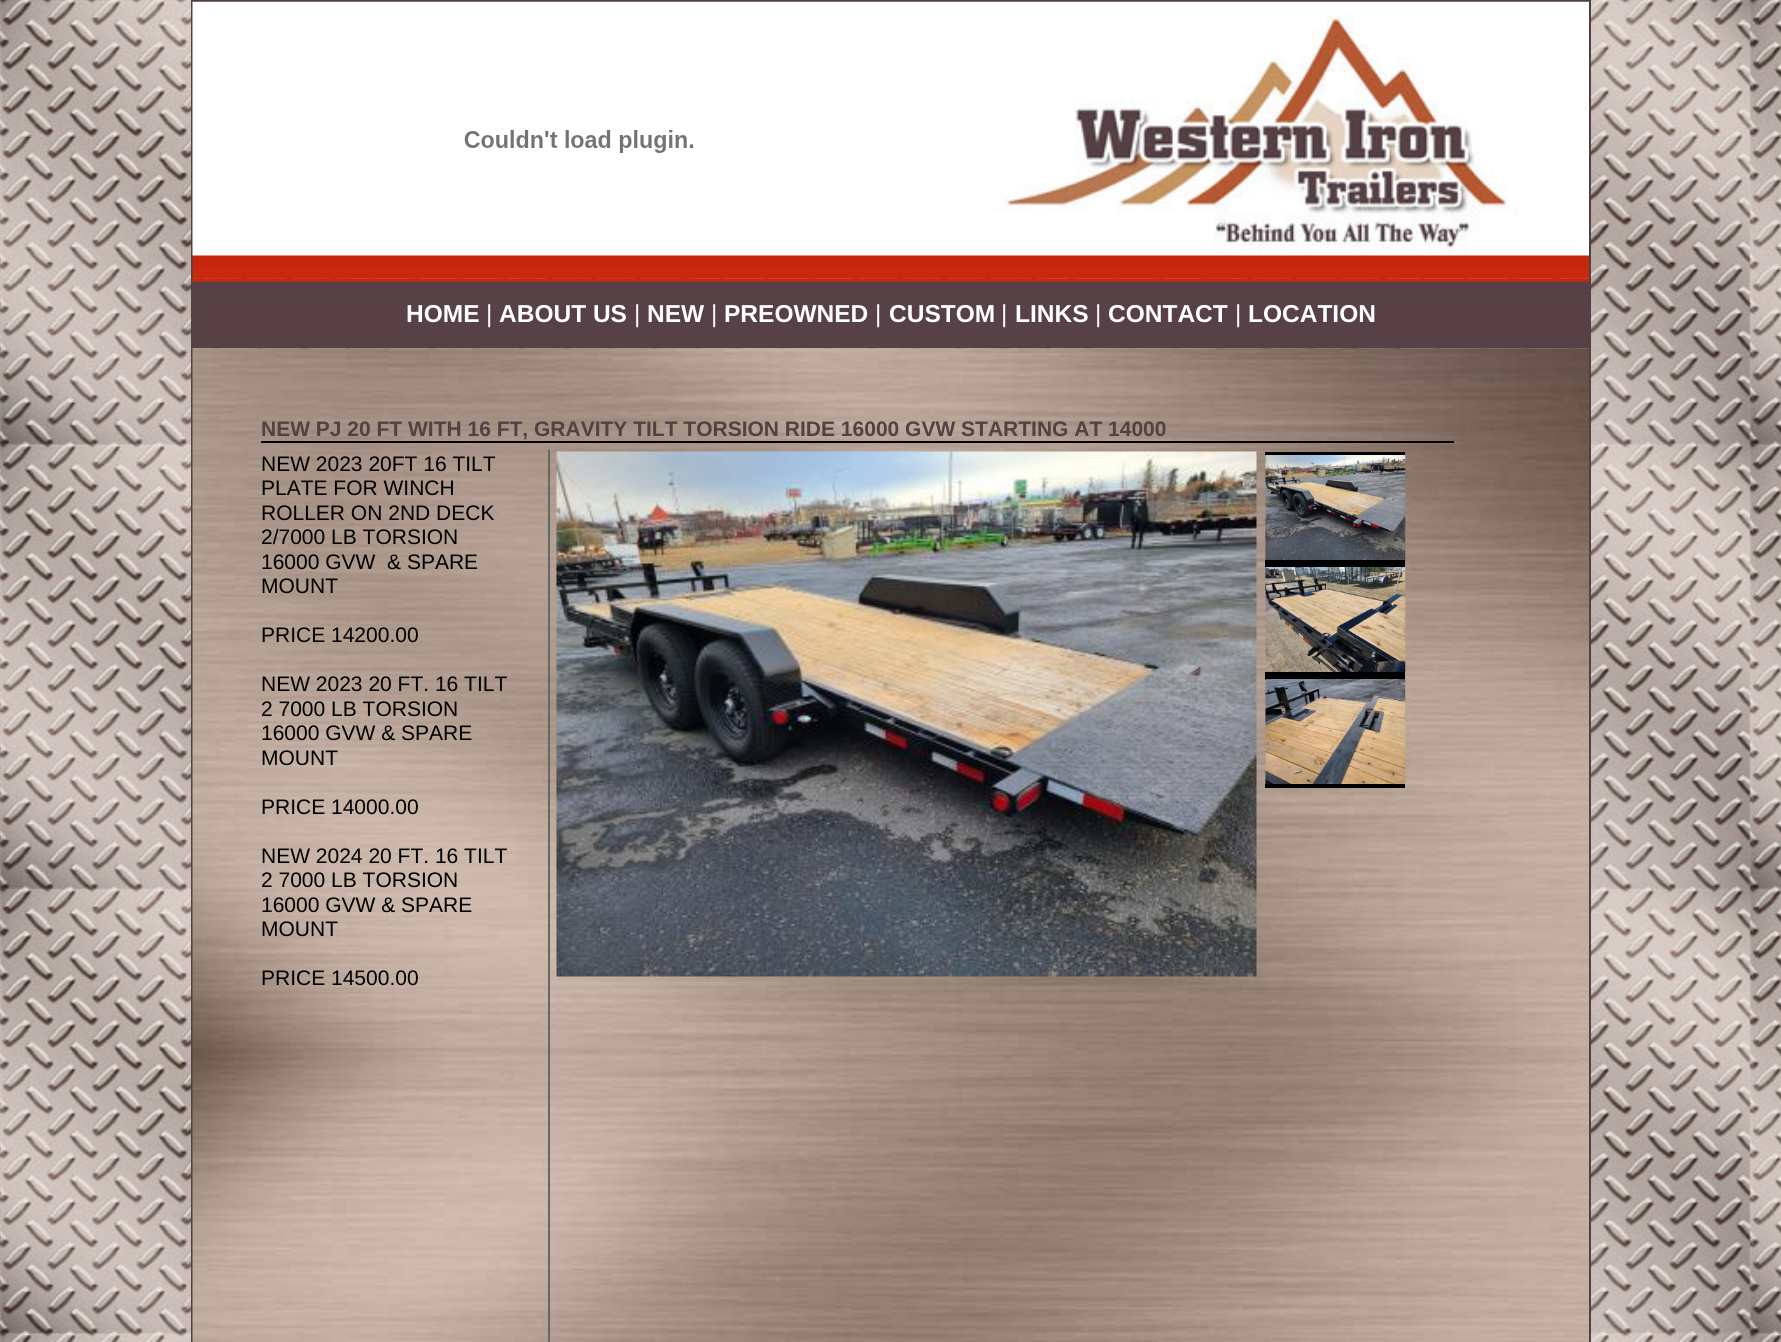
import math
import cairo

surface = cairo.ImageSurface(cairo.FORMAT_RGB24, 1781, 1342)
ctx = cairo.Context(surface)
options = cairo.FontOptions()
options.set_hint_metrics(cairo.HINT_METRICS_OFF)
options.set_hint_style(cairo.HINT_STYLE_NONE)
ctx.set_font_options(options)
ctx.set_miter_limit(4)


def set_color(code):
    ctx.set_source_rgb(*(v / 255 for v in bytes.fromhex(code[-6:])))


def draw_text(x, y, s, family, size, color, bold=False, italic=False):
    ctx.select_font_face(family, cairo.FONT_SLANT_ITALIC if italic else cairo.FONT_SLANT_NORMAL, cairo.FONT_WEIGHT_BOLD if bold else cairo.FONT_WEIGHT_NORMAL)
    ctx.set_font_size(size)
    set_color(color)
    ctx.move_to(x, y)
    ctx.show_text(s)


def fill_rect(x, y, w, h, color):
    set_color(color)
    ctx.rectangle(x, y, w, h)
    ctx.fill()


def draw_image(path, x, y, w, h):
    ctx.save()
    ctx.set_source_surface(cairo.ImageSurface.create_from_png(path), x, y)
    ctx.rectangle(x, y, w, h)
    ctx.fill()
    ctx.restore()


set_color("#ffffff")
ctx.paint()
draw_image("assets/img1.png", 0, 0, 1781, 1342)
ctx.rectangle(192, 1, 1398, 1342)
set_color("#524142")
ctx.stroke()
draw_image("assets/img2.png", 192, 1, 1397, 278)
draw_image("assets/img3.png", 464, 130, 230, 23)
draw_image("assets/img4.png", 192, 278, 1397, 71)
draw_text(406, 322, "HOME", "Liberation Sans", 24.5, "#ffffff", bold=True)
draw_text(486, 322, "|", "Liberation Sans", 24.5, "#ffffff")
draw_text(499, 322, "ABOUT US", "Liberation Sans", 24.5, "#ffffff", bold=True)
draw_text(634, 322, "|", "Liberation Sans", 24.5, "#ffffff")
draw_text(647, 322, "NEW", "Liberation Sans", 24.5, "#ffffff", bold=True)
draw_text(711, 322, "|", "Liberation Sans", 24.5, "#ffffff")
draw_text(724, 322, "PREOWNED", "Liberation Sans", 24.5, "#ffffff", bold=True)
draw_text(875, 322, "|", "Liberation Sans", 24.5, "#ffffff")
draw_text(889, 322, "CUSTOM", "Liberation Sans", 24.5, "#ffffff", bold=True)
draw_text(1001, 322, "|", "Liberation Sans", 24.5, "#ffffff")
draw_text(1015, 322, "LINKS", "Liberation Sans", 24.5, "#ffffff", bold=True)
draw_text(1095, 322, "|", "Liberation Sans", 24.5, "#ffffff")
draw_text(1108, 322, "CONTACT", "Liberation Sans", 24.5, "#ffffff", bold=True)
draw_text(1235, 322, "|", "Liberation Sans", 24.5, "#ffffff")
draw_text(1248, 322, "LOCATION", "Liberation Sans", 24.5, "#ffffff", bold=True)
draw_image("assets/img5.png", 192, 348, 1397, 994)
fill_rect(261, 441, 1193, 2, "#000000")
draw_text(261, 436, "NEW PJ 20 FT WITH 16 FT, GRAVITY TILT TORSION RIDE 16000 GVW STARTING AT 14000", "Liberation Sans", 21, "#524142", bold=True)
fill_rect(548, 450, 2, 892, "#666666")
draw_text(261, 471, "NEW 2023 20FT 16 TILT", "Liberation Sans", 21, "#000000")
draw_text(261, 495, "PLATE FOR WINCH", "Liberation Sans", 21, "#000000")
draw_text(261, 520, "ROLLER ON 2ND DECK", "Liberation Sans", 21, "#000000")
draw_text(261, 544, "2/7000 LB TORSION", "Liberation Sans", 21, "#000000")
draw_text(261, 569, "16000 GVW  & SPARE", "Liberation Sans", 21, "#000000")
draw_text(261, 593, "MOUNT", "Liberation Sans", 21, "#000000")
draw_text(261, 642, "PRICE 14200.00", "Liberation Sans", 21, "#000000")
draw_text(261, 691, "NEW 2023 20 FT. 16 TILT", "Liberation Sans", 21, "#000000")
draw_text(261, 716, "2 7000 LB TORSION", "Liberation Sans", 21, "#000000")
draw_text(261, 740, "16000 GVW & SPARE", "Liberation Sans", 21, "#000000")
draw_text(261, 765, "MOUNT", "Liberation Sans", 21, "#000000")
draw_text(261, 814, "PRICE 14000.00", "Liberation Sans", 21, "#000000")
draw_text(261, 863, "NEW 2024 20 FT. 16 TILT", "Liberation Sans", 21, "#000000")
draw_text(261, 887, "2 7000 LB TORSION", "Liberation Sans", 21, "#000000")
draw_text(261, 912, "16000 GVW & SPARE", "Liberation Sans", 21, "#000000")
draw_text(261, 936, "MOUNT", "Liberation Sans", 21, "#000000")
draw_text(261, 985, "PRICE 14500.00", "Liberation Sans", 21, "#000000")
draw_image("assets/img6.png", 556, 451, 701, 526)
fill_rect(1265, 452, 140, 4, "#000000")
draw_image("assets/img7.png", 1265, 455, 141, 105)
fill_rect(1265, 560, 140, 8, "#000000")
draw_image("assets/img8.png", 1265, 567, 141, 105)
fill_rect(1265, 672, 140, 8, "#000000")
draw_image("assets/img9.png", 1265, 679, 141, 105)
fill_rect(1265, 784, 140, 4, "#000000")
surface.write_to_png("output.png")
